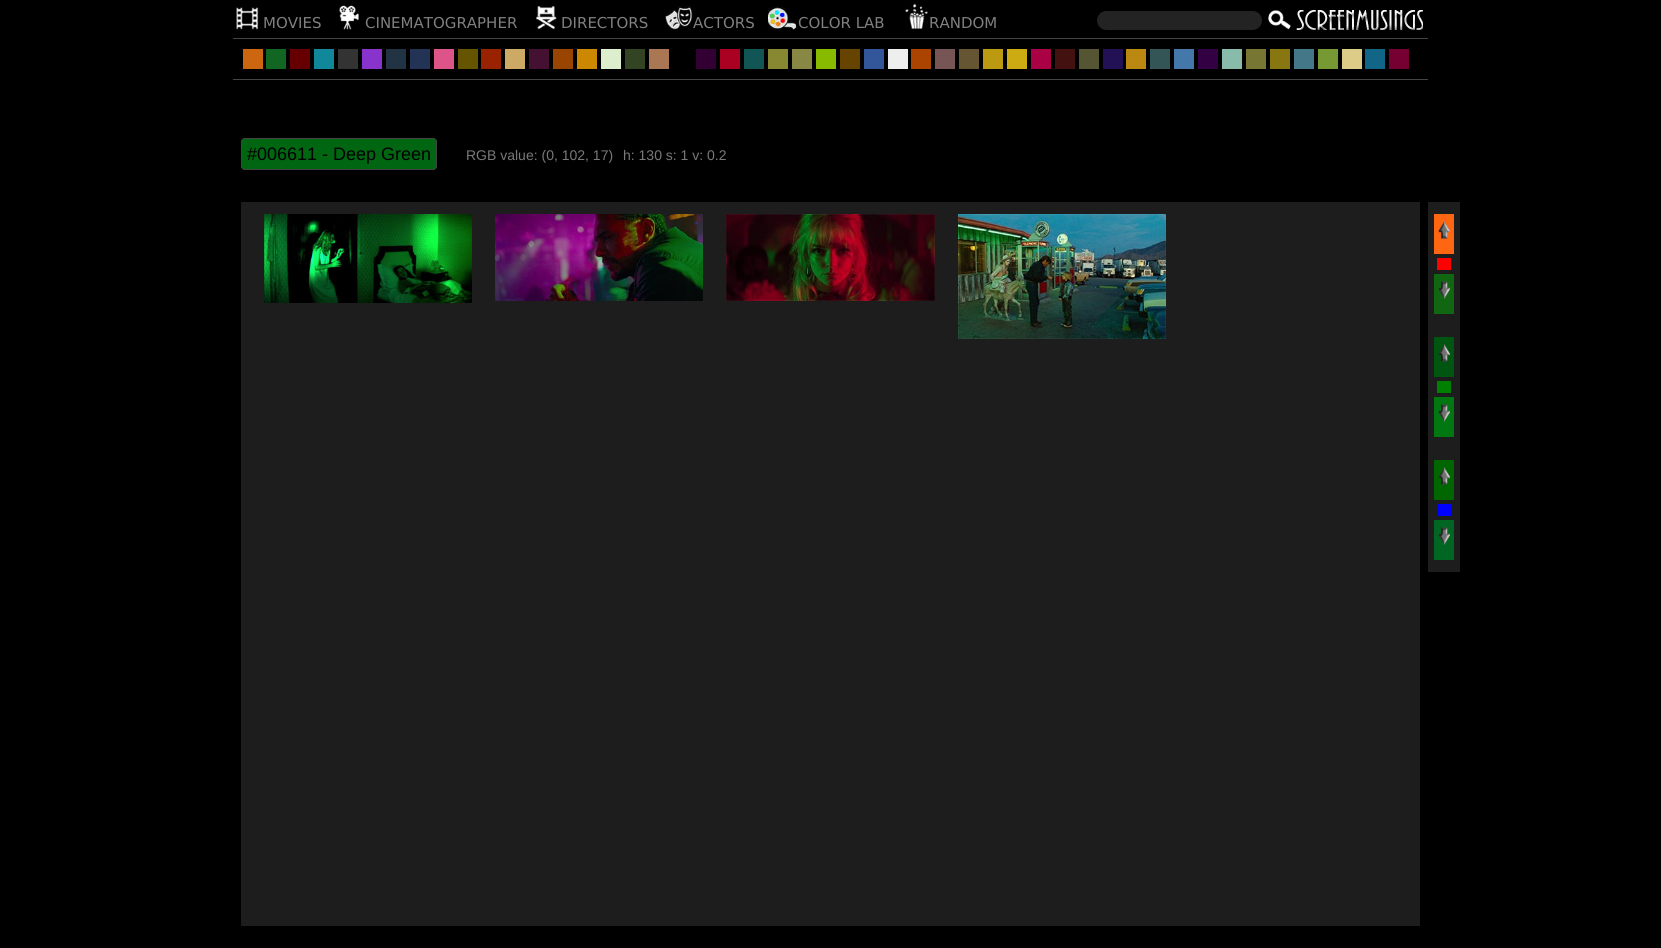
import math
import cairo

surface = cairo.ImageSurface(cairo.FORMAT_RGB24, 1661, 948)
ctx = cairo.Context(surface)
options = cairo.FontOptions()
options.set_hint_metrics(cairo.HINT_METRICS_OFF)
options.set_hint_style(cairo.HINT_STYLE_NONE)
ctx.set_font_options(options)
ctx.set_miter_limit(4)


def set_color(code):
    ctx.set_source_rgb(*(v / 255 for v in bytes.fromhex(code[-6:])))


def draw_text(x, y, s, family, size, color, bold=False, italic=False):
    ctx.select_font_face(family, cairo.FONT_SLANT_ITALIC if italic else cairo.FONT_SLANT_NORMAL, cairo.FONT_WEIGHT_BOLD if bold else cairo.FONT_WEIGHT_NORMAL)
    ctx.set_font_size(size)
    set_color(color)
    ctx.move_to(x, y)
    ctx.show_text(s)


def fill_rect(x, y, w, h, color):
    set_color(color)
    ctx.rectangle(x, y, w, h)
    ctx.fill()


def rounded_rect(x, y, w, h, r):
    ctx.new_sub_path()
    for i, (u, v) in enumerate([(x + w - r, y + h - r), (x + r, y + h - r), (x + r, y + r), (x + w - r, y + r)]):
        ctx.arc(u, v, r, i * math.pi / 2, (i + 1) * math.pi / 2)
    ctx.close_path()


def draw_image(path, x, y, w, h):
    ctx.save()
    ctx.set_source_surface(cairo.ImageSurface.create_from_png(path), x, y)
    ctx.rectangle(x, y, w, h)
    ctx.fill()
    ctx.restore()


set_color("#000000")
ctx.paint()
fill_rect(233, 38, 1195, 1, "#444444")
draw_image("assets/img1.png", 236, 7, 23, 23)
draw_text(263, 28, "MOVIES", "DejaVu Sans", 15, "#808080")
draw_image("assets/img2.png", 339, 5, 20, 25)
draw_text(365, 28, "CINEMATOGRAPHER", "DejaVu Sans", 15, "#808080")
draw_image("assets/img3.png", 536, 6, 21, 24)
draw_text(561, 28, "DIRECTORS", "DejaVu Sans", 15, "#808080")
draw_image("assets/img4.png", 665, 5, 28, 25)
draw_text(693, 28, "ACTORS", "DejaVu Sans", 15, "#808080")
draw_image("assets/img5.png", 768, 6, 29, 24)
draw_text(798, 28, "COLOR LAB", "DejaVu Sans", 15, "#808080")
draw_image("assets/img6.png", 905, 3, 23, 26)
draw_text(929, 28, "RANDOM", "DejaVu Sans", 15, "#808080")
set_color("#232323")
rounded_rect(1097, 11, 165, 19, 9.5)
ctx.fill()
draw_image("assets/img7.png", 1268, 10, 23, 20)
draw_image("assets/img8.png", 1296, 10, 127, 20)
fill_rect(233, 79, 1195, 1, "#444444")
fill_rect(243, 49, 20, 20, "#cc6611")
fill_rect(266, 49, 20, 20, "#116622")
fill_rect(290, 49, 20, 20, "#660000")
fill_rect(314, 49, 20, 20, "#118899")
fill_rect(338, 49, 20, 20, "#333333")
fill_rect(362, 49, 20, 20, "#8833cc")
fill_rect(386, 49, 20, 20, "#223344")
fill_rect(410, 49, 20, 20, "#223355")
fill_rect(434, 49, 20, 20, "#dd5588")
fill_rect(458, 49, 20, 20, "#665500")
fill_rect(481, 49, 20, 20, "#992200")
fill_rect(505, 49, 20, 20, "#ccaa66")
fill_rect(529, 49, 20, 20, "#441133")
fill_rect(553, 49, 20, 20, "#994400")
fill_rect(577, 49, 20, 20, "#cc8800")
fill_rect(601, 49, 20, 20, "#ddeecc")
fill_rect(625, 49, 20, 20, "#334422")
fill_rect(649, 49, 20, 20, "#aa7755")
fill_rect(696, 49, 20, 20, "#330033")
fill_rect(720, 49, 20, 20, "#aa0022")
fill_rect(744, 49, 20, 20, "#115555")
fill_rect(768, 49, 20, 20, "#888833")
fill_rect(792, 49, 20, 20, "#888844")
fill_rect(816, 49, 20, 20, "#88bb00")
fill_rect(840, 49, 20, 20, "#664400")
fill_rect(864, 49, 20, 20, "#335599")
fill_rect(888, 49, 20, 20, "#eeeeee")
fill_rect(911, 49, 20, 20, "#aa4400")
fill_rect(935, 49, 20, 20, "#775555")
fill_rect(959, 49, 20, 20, "#665533")
fill_rect(983, 49, 20, 20, "#bb9911")
fill_rect(1007, 49, 20, 20, "#ccaa11")
fill_rect(1031, 49, 20, 20, "#aa0044")
fill_rect(1055, 49, 20, 20, "#441111")
fill_rect(1079, 49, 20, 20, "#555533")
fill_rect(1103, 49, 20, 20, "#221155")
fill_rect(1126, 49, 20, 20, "#bb8811")
fill_rect(1150, 49, 20, 20, "#335555")
fill_rect(1174, 49, 20, 20, "#4477aa")
fill_rect(1198, 49, 20, 20, "#330044")
fill_rect(1222, 49, 20, 20, "#88bbaa")
fill_rect(1246, 49, 20, 20, "#777733")
fill_rect(1270, 49, 20, 20, "#887711")
fill_rect(1294, 49, 20, 20, "#447788")
fill_rect(1318, 49, 20, 20, "#779933")
fill_rect(1342, 49, 20, 20, "#ddcc88")
fill_rect(1365, 49, 20, 20, "#116688")
fill_rect(1389, 49, 20, 20, "#770033")
set_color("#006611")
ctx.new_path()
ctx.move_to(245, 138)
ctx.line_to(322, 138)
ctx.line_to(322, 170)
ctx.line_to(245, 170)
ctx.curve_to(243, 170, 241, 168, 241, 166)
ctx.line_to(241, 142)
ctx.curve_to(241, 140, 243, 138, 245, 138)
ctx.close_path()
ctx.fill()
set_color("#444444")
ctx.set_fill_rule(cairo.FILL_RULE_EVEN_ODD)
ctx.new_path()
ctx.move_to(245, 138)
ctx.line_to(322, 138)
ctx.line_to(322, 170)
ctx.line_to(245, 170)
ctx.curve_to(243, 170, 241, 168, 241, 166)
ctx.line_to(241, 142)
ctx.curve_to(241, 140, 243, 138, 245, 138)
ctx.close_path()
ctx.move_to(245, 139)
ctx.line_to(322, 139)
ctx.line_to(322, 169)
ctx.line_to(245, 169)
ctx.curve_to(243, 169, 242, 168, 242, 166)
ctx.line_to(242, 142)
ctx.curve_to(242, 140, 243, 139, 245, 139)
ctx.close_path()
ctx.fill()
set_color("#006611")
ctx.new_path()
ctx.move_to(322, 138)
ctx.line_to(433, 138)
ctx.curve_to(435, 138, 437, 140, 437, 142)
ctx.line_to(437, 166)
ctx.curve_to(437, 168, 435, 170, 433, 170)
ctx.line_to(322, 170)
ctx.close_path()
ctx.fill()
set_color("#444444")
ctx.new_path()
ctx.move_to(322, 138)
ctx.line_to(433, 138)
ctx.curve_to(435, 138, 437, 140, 437, 142)
ctx.line_to(437, 166)
ctx.curve_to(437, 168, 435, 170, 433, 170)
ctx.line_to(322, 170)
ctx.close_path()
ctx.move_to(322, 139)
ctx.line_to(433, 139)
ctx.curve_to(435, 139, 436, 140, 436, 142)
ctx.line_to(436, 166)
ctx.curve_to(436, 168, 435, 169, 433, 169)
ctx.line_to(322, 169)
ctx.close_path()
ctx.fill()
draw_text(247, 160, "#006611 - Deep Green", "Liberation Sans", 18, "#000000")
draw_text(466, 160, "RGB value: (0, 102, 17)", "Liberation Sans", 14, "#797979")
draw_text(623, 160, "h: 130 s: 1 v: 0.2", "Liberation Sans", 14, "#797979")
fill_rect(241, 202, 1179, 724, "#1d1d1d")
draw_image("assets/img9.png", 264, 214, 208, 89)
draw_image("assets/img10.png", 495, 214, 208, 87)
draw_image("assets/img11.png", 726, 214, 209, 87)
draw_image("assets/img12.png", 958, 214, 208, 125)
fill_rect(1428, 202, 32, 370, "#1d1d1d")
fill_rect(1434, 214, 20, 40, "#ff6611")
draw_image("assets/img13.png", 1438, 221, 12, 18)
fill_rect(1437, 258, 14, 12, "#ff0000")
fill_rect(1434, 274, 20, 40, "#116611")
draw_image("assets/img14.png", 1438, 281, 12, 18)
fill_rect(1434, 337, 20, 40, "#005511")
draw_image("assets/img15.png", 1438, 344, 12, 18)
fill_rect(1437, 381, 14, 12, "#008000")
fill_rect(1434, 397, 20, 40, "#007711")
draw_image("assets/img16.png", 1438, 404, 12, 18)
fill_rect(1434, 460, 20, 40, "#006600")
draw_image("assets/img17.png", 1438, 467, 12, 18)
fill_rect(1437, 504, 14, 12, "#0000ff")
fill_rect(1434, 520, 20, 40, "#006622")
draw_image("assets/img18.png", 1438, 527, 12, 18)
surface.write_to_png("output.png")
